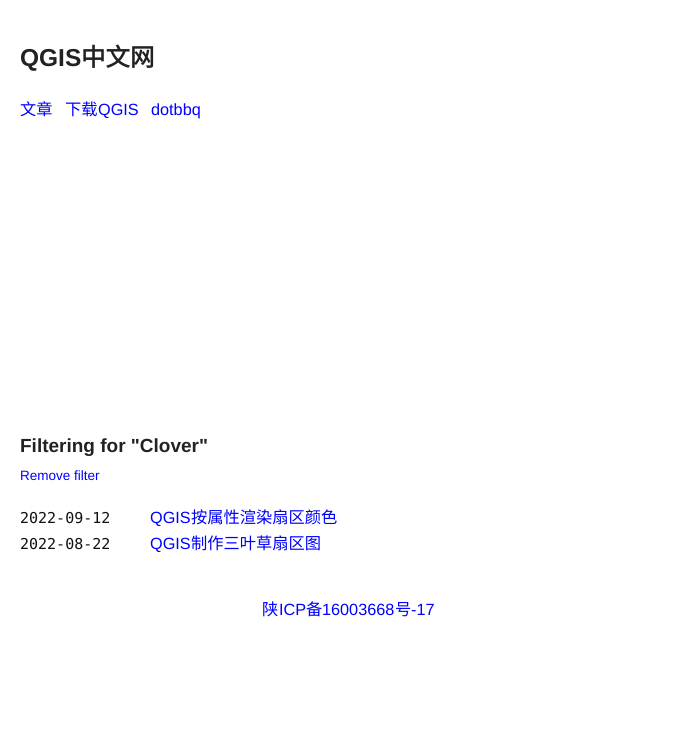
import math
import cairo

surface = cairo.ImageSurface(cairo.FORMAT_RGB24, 697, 734)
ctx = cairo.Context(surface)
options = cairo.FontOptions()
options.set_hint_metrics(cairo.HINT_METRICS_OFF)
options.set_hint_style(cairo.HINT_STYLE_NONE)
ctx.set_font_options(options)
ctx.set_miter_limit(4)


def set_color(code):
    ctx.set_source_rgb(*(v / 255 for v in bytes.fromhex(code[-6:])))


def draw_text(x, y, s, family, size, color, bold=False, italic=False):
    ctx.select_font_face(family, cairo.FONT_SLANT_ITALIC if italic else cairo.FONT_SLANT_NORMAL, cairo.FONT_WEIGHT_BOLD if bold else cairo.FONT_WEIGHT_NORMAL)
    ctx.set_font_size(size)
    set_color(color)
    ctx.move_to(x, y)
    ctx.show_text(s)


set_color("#ffffff")
ctx.paint()
draw_text(20, 66, "QGIS", "Liberation Sans", 24.5, "#222222", bold=True)
draw_text(81, 66, "中文网", "Noto Sans CJK SC", 24.5, "#222222", bold=True)
draw_text(20, 115, "文章", "Noto Sans CJK SC", 16.25, "#0000ff")
draw_text(65, 115, "下载", "Noto Sans CJK SC", 16.25, "#0000ff")
draw_text(98, 115, "QGIS", "Liberation Sans", 16.25, "#0000ff")
draw_text(151, 115, "dotbbq", "Liberation Sans", 16.25, "#0000ff")
draw_text(20, 452, "Filtering for \"Clover\"", "Liberation Sans", 19, "#222222", bold=True)
draw_text(20, 480, "Remove filter", "Liberation Sans", 13.5, "#0000ff")
draw_text(20, 523, "2022-09-12", "DejaVu Sans Mono", 15, "#111111")
draw_text(150, 523, "QGIS", "Liberation Sans", 16.25, "#0000ff")
draw_text(191, 523, "按属性渲染扇区颜色", "Noto Sans CJK SC", 16.25, "#0000ff")
draw_text(20, 549, "2022-08-22", "DejaVu Sans Mono", 15, "#111111")
draw_text(150, 549, "QGIS", "Liberation Sans", 16.25, "#0000ff")
draw_text(191, 549, "制作三叶草扇区图", "Noto Sans CJK SC", 16.25, "#0000ff")
draw_text(262, 615, "陕", "Noto Sans CJK SC", 16.25, "#0000ff")
draw_text(279, 615, "ICP", "Liberation Sans", 16.25, "#0000ff")
draw_text(306, 615, "备", "Noto Sans CJK SC", 16.25, "#0000ff")
draw_text(322, 615, "16003668", "Liberation Sans", 16.25, "#0000ff")
draw_text(395, 615, "号", "Noto Sans CJK SC", 16.25, "#0000ff")
draw_text(411, 615, "-17", "Liberation Sans", 16.25, "#0000ff")
surface.write_to_png("output.png")
